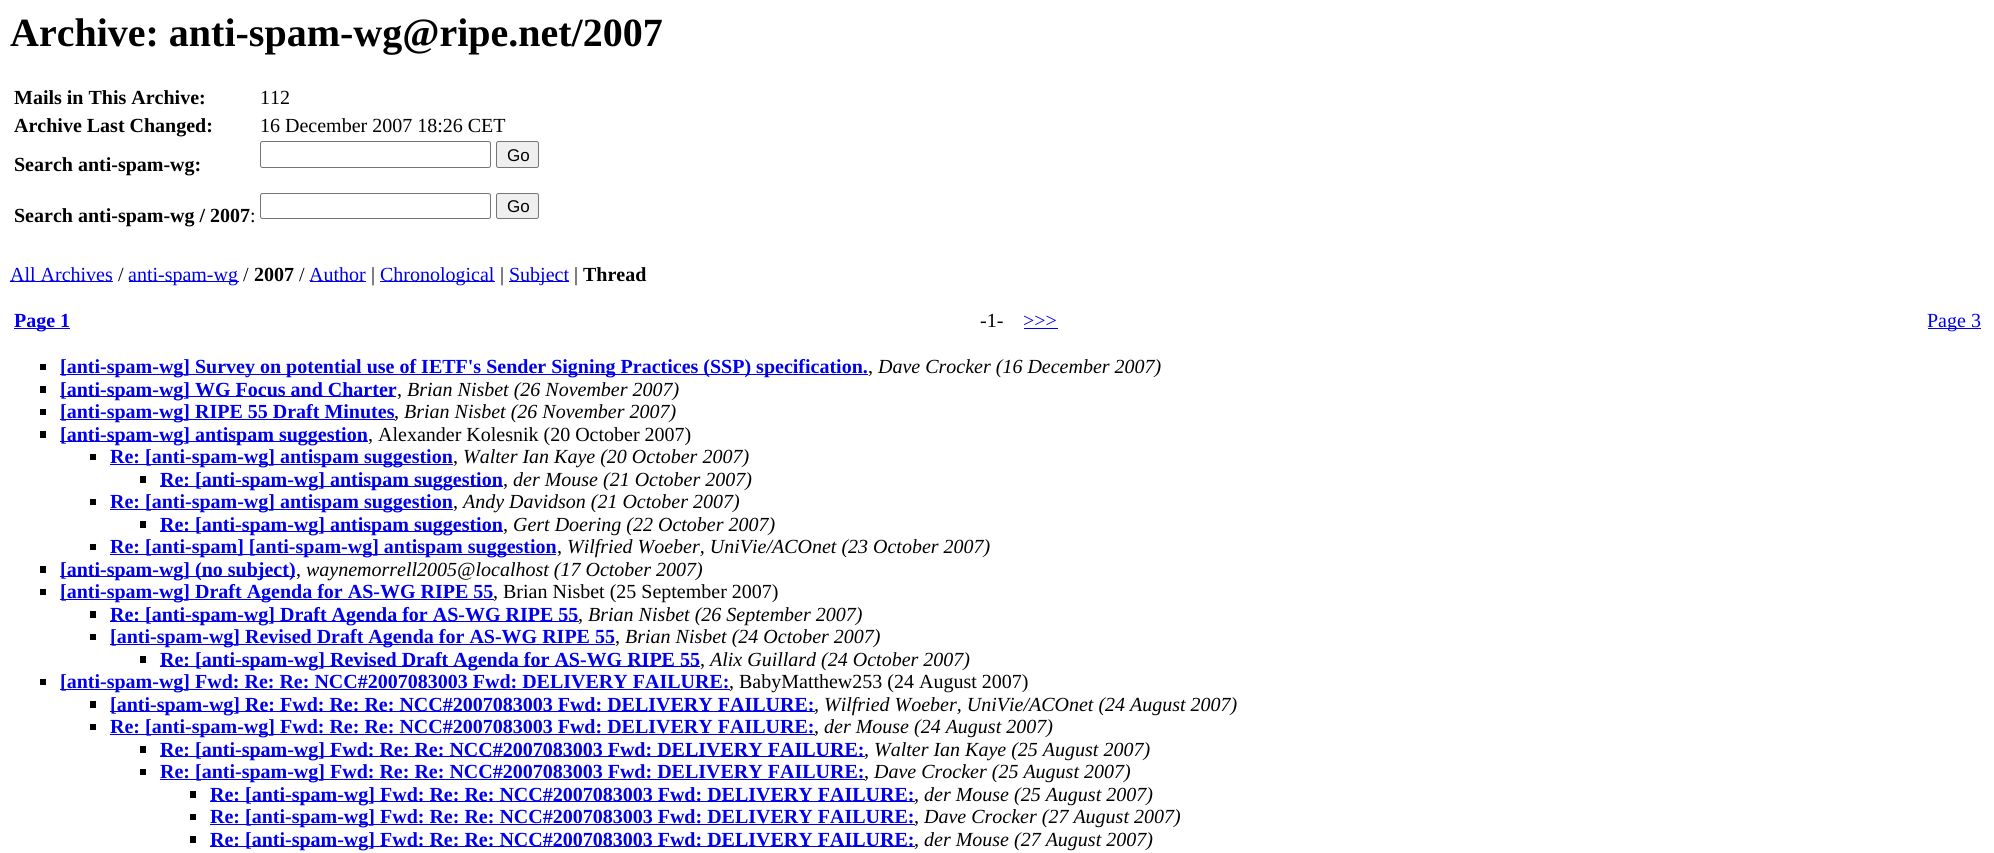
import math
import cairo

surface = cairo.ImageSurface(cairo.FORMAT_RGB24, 1994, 853)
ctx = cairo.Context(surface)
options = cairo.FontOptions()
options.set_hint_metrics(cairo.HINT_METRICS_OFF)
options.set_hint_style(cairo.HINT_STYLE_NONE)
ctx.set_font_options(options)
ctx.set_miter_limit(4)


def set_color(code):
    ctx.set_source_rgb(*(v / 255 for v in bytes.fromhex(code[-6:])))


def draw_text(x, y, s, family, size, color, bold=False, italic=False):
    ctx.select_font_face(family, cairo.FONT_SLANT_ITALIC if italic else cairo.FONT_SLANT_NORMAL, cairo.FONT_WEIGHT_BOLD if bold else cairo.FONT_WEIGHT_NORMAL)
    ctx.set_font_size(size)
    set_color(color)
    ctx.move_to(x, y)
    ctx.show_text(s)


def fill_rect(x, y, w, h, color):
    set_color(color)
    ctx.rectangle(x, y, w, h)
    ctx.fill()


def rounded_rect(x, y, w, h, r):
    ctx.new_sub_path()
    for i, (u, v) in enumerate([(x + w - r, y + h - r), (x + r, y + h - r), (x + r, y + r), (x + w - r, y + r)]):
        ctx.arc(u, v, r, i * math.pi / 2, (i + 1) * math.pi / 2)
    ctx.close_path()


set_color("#ffffff")
ctx.paint()
draw_text(10, 46, "Archive: anti-spam-wg@ripe.net/2007", "Liberation Serif", 40, "#000000", bold=True)
draw_text(14, 104, "Mails in This Archive:", "Liberation Serif", 20, "#000000", bold=True)
draw_text(260, 104, "112", "Liberation Serif", 20, "#000000")
draw_text(14, 132, "Archive Last Changed:", "Liberation Serif", 20, "#000000", bold=True)
draw_text(260, 132, "16 December 2007 18:26 CET", "Liberation Serif", 20, "#000000")
rounded_rect(260.5, 141.5, 230, 26, 2)
set_color("#767676")
ctx.set_line_width(1)
ctx.stroke()
set_color("#efefef")
rounded_rect(496.5, 141.5, 42, 26, 2)
ctx.fill_preserve()
set_color("#767676")
ctx.stroke()
draw_text(507, 161, "Go", "Liberation Sans", 17, "#000000")
draw_text(14, 171, "Search anti-spam-wg:", "Liberation Serif", 20, "#000000", bold=True)
rounded_rect(260.5, 193.5, 230, 25, 2)
set_color("#767676")
ctx.stroke()
set_color("#efefef")
rounded_rect(496.5, 193.5, 42, 25, 2)
ctx.fill_preserve()
set_color("#767676")
ctx.stroke()
draw_text(507, 212, "Go", "Liberation Sans", 17, "#000000")
draw_text(14, 222, "Search anti-spam-wg / 2007", "Liberation Serif", 20, "#000000", bold=True)
draw_text(250, 222, ":", "Liberation Serif", 20, "#000000")
fill_rect(10, 281, 103, 1, "#0000ee")
draw_text(10, 281, "All Archives", "Liberation Serif", 20, "#0000ee")
draw_text(118, 281, "/", "Liberation Serif", 20, "#000000")
fill_rect(129, 281, 110, 1, "#0000ee")
draw_text(128, 281, "anti-spam-wg", "Liberation Serif", 20, "#0000ee")
draw_text(243, 281, "/", "Liberation Serif", 20, "#000000")
draw_text(254, 281, "2007", "Liberation Serif", 20, "#000000", bold=True)
draw_text(299, 281, "/", "Liberation Serif", 20, "#000000")
fill_rect(310, 281, 56, 1, "#0000ee")
draw_text(309, 281, "Author", "Liberation Serif", 20, "#0000ee")
draw_text(371, 281, "|", "Liberation Serif", 20, "#000000")
fill_rect(380, 281, 115, 1, "#0000ee")
draw_text(380, 281, "Chronological", "Liberation Serif", 20, "#0000ee")
draw_text(500, 281, "|", "Liberation Serif", 20, "#000000")
fill_rect(509, 281, 60, 1, "#0000ee")
draw_text(509, 281, "Subject", "Liberation Serif", 20, "#0000ee")
draw_text(574, 281, "|", "Liberation Serif", 20, "#000000")
draw_text(583, 281, "Thread", "Liberation Serif", 20, "#000000", bold=True)
fill_rect(14, 328, 56, 1, "#0000ee")
draw_text(14, 327, "Page 1", "Liberation Serif", 20, "#0000ee", bold=True)
draw_text(980, 327, "-1-", "Liberation Serif", 20, "#000000")
draw_text(1023, 327, ">>>", "Liberation Serif", 20, "#0000ee")
fill_rect(1024, 328, 34, 1, "#0000ee")
fill_rect(1928, 328, 53, 1, "#0000ee")
draw_text(1927, 327, "Page 3", "Liberation Serif", 20, "#0000ee")
fill_rect(40, 364, 6, 6, "#000000")
fill_rect(60, 374, 808, 1, "#0000ee")
draw_text(60, 373, "[anti-spam-wg] Survey on potential use of IETF's Sender Signing Practices (SSP) specification.", "Liberation Serif", 20, "#0000ee", bold=True)
draw_text(878, 373, "Dave Crocker (16 December 2007)", "Liberation Serif", 20, "#000000", italic=True)
draw_text(868, 373, ",", "Liberation Serif", 20, "#000000")
fill_rect(40, 386, 6, 7, "#000000")
fill_rect(60, 396, 336, 1, "#0000ee")
draw_text(60, 396, "[anti-spam-wg] WG Focus and Charter", "Liberation Serif", 20, "#0000ee", bold=True)
draw_text(407, 396, "Brian Nisbet (26 November 2007)", "Liberation Serif", 20, "#000000", italic=True)
draw_text(397, 396, ",", "Liberation Serif", 20, "#000000")
fill_rect(40, 409, 6, 6, "#000000")
fill_rect(60, 419, 335, 1, "#0000ee")
draw_text(60, 418, "[anti-spam-wg] RIPE 55 Draft Minutes", "Liberation Serif", 20, "#0000ee", bold=True)
draw_text(404, 418, "Brian Nisbet (26 November 2007)", "Liberation Serif", 20, "#000000", italic=True)
draw_text(394, 418, ",", "Liberation Serif", 20, "#000000")
fill_rect(40, 431, 6, 7, "#000000")
fill_rect(60, 441, 308, 1, "#0000ee")
draw_text(60, 441, "[anti-spam-wg] antispam suggestion", "Liberation Serif", 20, "#0000ee", bold=True)
draw_text(368, 441, ", Alexander Kolesnik (20 October 2007)", "Liberation Serif", 20, "#000000")
fill_rect(90, 454, 6, 6, "#000000")
fill_rect(110, 464, 343, 1, "#0000ee")
draw_text(110, 463, "Re: [anti-spam-wg] antispam suggestion", "Liberation Serif", 20, "#0000ee", bold=True)
draw_text(463, 463, "Walter Ian Kaye (20 October 2007)", "Liberation Serif", 20, "#000000", italic=True)
draw_text(453, 463, ",", "Liberation Serif", 20, "#000000")
fill_rect(140, 476, 6, 7, "#000000")
fill_rect(160, 486, 343, 1, "#0000ee")
draw_text(160, 486, "Re: [anti-spam-wg] antispam suggestion", "Liberation Serif", 20, "#0000ee", bold=True)
draw_text(513, 486, "der Mouse (21 October 2007)", "Liberation Serif", 20, "#000000", italic=True)
draw_text(503, 486, ",", "Liberation Serif", 20, "#000000")
fill_rect(90, 499, 6, 6, "#000000")
fill_rect(110, 509, 343, 1, "#0000ee")
draw_text(110, 508, "Re: [anti-spam-wg] antispam suggestion", "Liberation Serif", 20, "#0000ee", bold=True)
draw_text(463, 508, "Andy Davidson (21 October 2007)", "Liberation Serif", 20, "#000000", italic=True)
draw_text(453, 508, ",", "Liberation Serif", 20, "#000000")
fill_rect(140, 521, 6, 7, "#000000")
fill_rect(160, 531, 343, 1, "#0000ee")
draw_text(160, 531, "Re: [anti-spam-wg] antispam suggestion", "Liberation Serif", 20, "#0000ee", bold=True)
draw_text(513, 531, "Gert Doering (22 October 2007)", "Liberation Serif", 20, "#000000", italic=True)
draw_text(503, 531, ",", "Liberation Serif", 20, "#000000")
fill_rect(90, 544, 6, 6, "#000000")
fill_rect(110, 554, 446, 1, "#0000ee")
draw_text(110, 553, "Re: [anti-spam] [anti-spam-wg] antispam suggestion", "Liberation Serif", 20, "#0000ee", bold=True)
draw_text(567, 553, "Wilfried Woeber, UniVie/ACOnet (23 October 2007)", "Liberation Serif", 20, "#000000", italic=True)
draw_text(557, 553, ",", "Liberation Serif", 20, "#000000")
fill_rect(40, 566, 6, 7, "#000000")
fill_rect(60, 576, 235, 1, "#0000ee")
draw_text(60, 576, "[anti-spam-wg] (no subject)", "Liberation Serif", 20, "#0000ee", bold=True)
draw_text(306, 576, "waynemorrell2005@localhost (17 October 2007)", "Liberation Serif", 20, "#000000", italic=True)
draw_text(296, 576, ",", "Liberation Serif", 20, "#000000")
fill_rect(40, 589, 6, 6, "#000000")
fill_rect(60, 599, 434, 1, "#0000ee")
draw_text(60, 598, "[anti-spam-wg] Draft Agenda for AS-WG RIPE 55", "Liberation Serif", 20, "#0000ee", bold=True)
draw_text(493, 598, ", Brian Nisbet (25 September 2007)", "Liberation Serif", 20, "#000000")
fill_rect(90, 611, 6, 7, "#000000")
fill_rect(110, 621, 469, 1, "#0000ee")
draw_text(110, 621, "Re: [anti-spam-wg] Draft Agenda for AS-WG RIPE 55", "Liberation Serif", 20, "#0000ee", bold=True)
draw_text(588, 621, "Brian Nisbet (26 September 2007)", "Liberation Serif", 20, "#000000", italic=True)
draw_text(578, 621, ",", "Liberation Serif", 20, "#000000")
fill_rect(90, 634, 6, 6, "#000000")
fill_rect(110, 644, 505, 1, "#0000ee")
draw_text(110, 643, "[anti-spam-wg] Revised Draft Agenda for AS-WG RIPE 55", "Liberation Serif", 20, "#0000ee", bold=True)
draw_text(625, 643, "Brian Nisbet (24 October 2007)", "Liberation Serif", 20, "#000000", italic=True)
draw_text(615, 643, ",", "Liberation Serif", 20, "#000000")
fill_rect(140, 656, 6, 7, "#000000")
fill_rect(160, 666, 540, 1, "#0000ee")
draw_text(160, 666, "Re: [anti-spam-wg] Revised Draft Agenda for AS-WG RIPE 55", "Liberation Serif", 20, "#0000ee", bold=True)
draw_text(710, 666, "Alix Guillard (24 October 2007)", "Liberation Serif", 20, "#000000", italic=True)
draw_text(700, 666, ",", "Liberation Serif", 20, "#000000")
fill_rect(40, 679, 6, 6, "#000000")
fill_rect(60, 689, 670, 1, "#0000ee")
draw_text(60, 688, "[anti-spam-wg] Fwd: Re: Re: NCC#2007083003 Fwd: DELIVERY FAILURE:", "Liberation Serif", 20, "#0000ee", bold=True)
draw_text(729, 688, ", BabyMatthew253 (24 August 2007)", "Liberation Serif", 20, "#000000")
fill_rect(90, 701, 6, 7, "#000000")
fill_rect(110, 711, 705, 1, "#0000ee")
draw_text(110, 711, "[anti-spam-wg] Re: Fwd: Re: Re: NCC#2007083003 Fwd: DELIVERY FAILURE:", "Liberation Serif", 20, "#0000ee", bold=True)
draw_text(824, 711, "Wilfried Woeber, UniVie/ACOnet (24 August 2007)", "Liberation Serif", 20, "#000000", italic=True)
draw_text(814, 711, ",", "Liberation Serif", 20, "#000000")
fill_rect(90, 724, 6, 6, "#000000")
fill_rect(110, 734, 705, 1, "#0000ee")
draw_text(110, 733, "Re: [anti-spam-wg] Fwd: Re: Re: NCC#2007083003 Fwd: DELIVERY FAILURE:", "Liberation Serif", 20, "#0000ee", bold=True)
draw_text(824, 733, "der Mouse (24 August 2007)", "Liberation Serif", 20, "#000000", italic=True)
draw_text(814, 733, ",", "Liberation Serif", 20, "#000000")
fill_rect(140, 746, 6, 7, "#000000")
fill_rect(160, 756, 705, 1, "#0000ee")
draw_text(160, 756, "Re: [anti-spam-wg] Fwd: Re: Re: NCC#2007083003 Fwd: DELIVERY FAILURE:", "Liberation Serif", 20, "#0000ee", bold=True)
draw_text(874, 756, "Walter Ian Kaye (25 August 2007)", "Liberation Serif", 20, "#000000", italic=True)
draw_text(864, 756, ",", "Liberation Serif", 20, "#000000")
fill_rect(140, 769, 6, 6, "#000000")
fill_rect(160, 779, 705, 1, "#0000ee")
draw_text(160, 778, "Re: [anti-spam-wg] Fwd: Re: Re: NCC#2007083003 Fwd: DELIVERY FAILURE:", "Liberation Serif", 20, "#0000ee", bold=True)
draw_text(874, 778, "Dave Crocker (25 August 2007)", "Liberation Serif", 20, "#000000", italic=True)
draw_text(864, 778, ",", "Liberation Serif", 20, "#000000")
fill_rect(190, 791, 6, 7, "#000000")
fill_rect(210, 801, 705, 1, "#0000ee")
draw_text(210, 801, "Re: [anti-spam-wg] Fwd: Re: Re: NCC#2007083003 Fwd: DELIVERY FAILURE:", "Liberation Serif", 20, "#0000ee", bold=True)
draw_text(924, 801, "der Mouse (25 August 2007)", "Liberation Serif", 20, "#000000", italic=True)
draw_text(914, 801, ",", "Liberation Serif", 20, "#000000")
fill_rect(190, 814, 6, 6, "#000000")
fill_rect(210, 824, 705, 1, "#0000ee")
draw_text(210, 823, "Re: [anti-spam-wg] Fwd: Re: Re: NCC#2007083003 Fwd: DELIVERY FAILURE:", "Liberation Serif", 20, "#0000ee", bold=True)
draw_text(924, 823, "Dave Crocker (27 August 2007)", "Liberation Serif", 20, "#000000", italic=True)
draw_text(914, 823, ",", "Liberation Serif", 20, "#000000")
fill_rect(190, 836, 6, 7, "#000000")
fill_rect(210, 846, 705, 1, "#0000ee")
draw_text(210, 846, "Re: [anti-spam-wg] Fwd: Re: Re: NCC#2007083003 Fwd: DELIVERY FAILURE:", "Liberation Serif", 20, "#0000ee", bold=True)
draw_text(924, 846, "der Mouse (27 August 2007)", "Liberation Serif", 20, "#000000", italic=True)
draw_text(914, 846, ",", "Liberation Serif", 20, "#000000")
surface.write_to_png("output.png")
